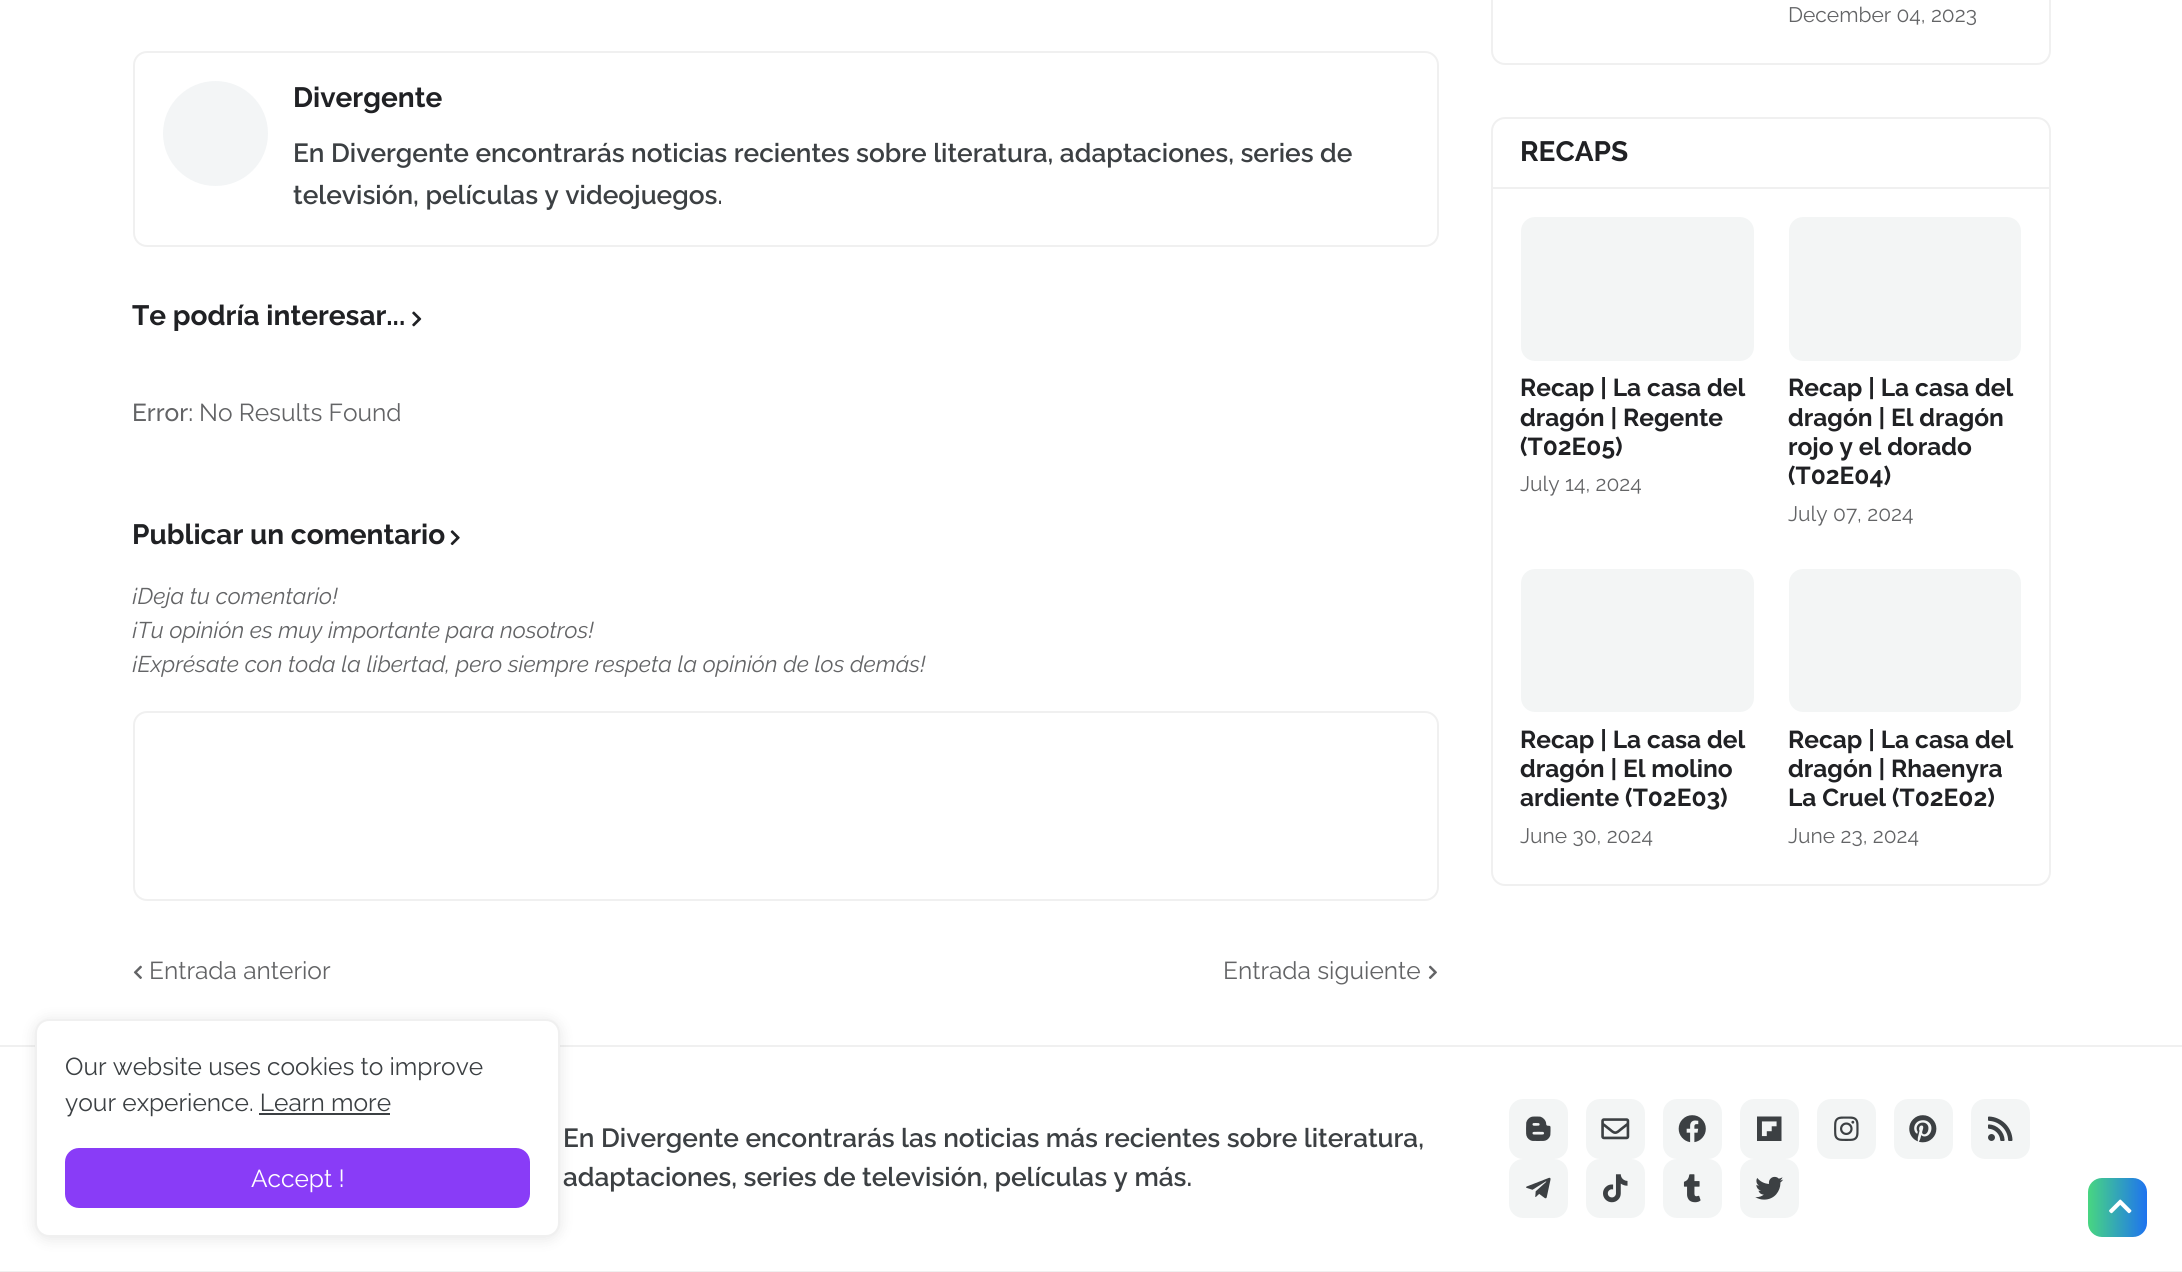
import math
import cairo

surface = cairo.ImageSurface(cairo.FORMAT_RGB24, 2182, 1272)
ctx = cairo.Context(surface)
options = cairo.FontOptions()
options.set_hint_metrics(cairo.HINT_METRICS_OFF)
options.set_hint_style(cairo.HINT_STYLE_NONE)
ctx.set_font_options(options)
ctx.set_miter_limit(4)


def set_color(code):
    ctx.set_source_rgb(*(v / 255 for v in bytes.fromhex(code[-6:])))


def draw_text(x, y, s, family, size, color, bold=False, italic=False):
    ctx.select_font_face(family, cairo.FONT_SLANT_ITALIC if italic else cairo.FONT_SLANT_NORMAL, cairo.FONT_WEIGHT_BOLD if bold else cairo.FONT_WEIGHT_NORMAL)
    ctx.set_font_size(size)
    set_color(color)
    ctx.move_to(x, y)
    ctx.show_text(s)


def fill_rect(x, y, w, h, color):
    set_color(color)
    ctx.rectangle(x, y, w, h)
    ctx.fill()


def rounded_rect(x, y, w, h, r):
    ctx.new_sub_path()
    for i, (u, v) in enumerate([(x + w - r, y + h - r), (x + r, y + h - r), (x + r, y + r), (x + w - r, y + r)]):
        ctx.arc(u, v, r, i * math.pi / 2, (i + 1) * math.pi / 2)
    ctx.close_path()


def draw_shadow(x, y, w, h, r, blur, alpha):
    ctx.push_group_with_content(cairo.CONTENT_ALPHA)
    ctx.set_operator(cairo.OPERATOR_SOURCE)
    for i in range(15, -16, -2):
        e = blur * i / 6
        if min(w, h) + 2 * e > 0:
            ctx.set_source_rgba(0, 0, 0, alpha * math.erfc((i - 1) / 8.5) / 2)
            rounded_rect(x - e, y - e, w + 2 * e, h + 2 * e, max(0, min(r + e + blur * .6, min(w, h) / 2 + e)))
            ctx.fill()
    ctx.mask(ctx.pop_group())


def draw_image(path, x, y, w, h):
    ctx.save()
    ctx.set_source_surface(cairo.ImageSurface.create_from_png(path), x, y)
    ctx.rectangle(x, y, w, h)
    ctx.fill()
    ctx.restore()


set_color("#ffffff")
ctx.paint()
rounded_rect(134, 52, 1304, 194, 13)
set_color("#f0f0f0")
ctx.stroke()
ctx.set_source_rgba(0.608, 0.667, 0.686, 0.12)
ctx.arc(215.5, 133.5, 52.5, 0, 2 * math.pi)
ctx.fill()
draw_text(293, 107, "Divergente", "Raleway", 28, "#202124", bold=True)
draw_text(293, 162, "En Divergente encontrarás noticias recientes sobre literatura, adaptaciones, series de", "Raleway SemiBold", 26.25, "#3c4043")
draw_text(293, 204, "televisión, películas y videojuegos.", "Raleway SemiBold", 26.25, "#3c4043")
draw_text(132, 325, "Te podría interesar...", "Raleway", 28, "#202124", bold=True)
draw_image("assets/img1.png", 412, 311, 10, 16)
draw_text(132, 421, "Error:", "Raleway Medium", 24.5, "#636466")
draw_text(199, 421, "No Results Found", "Raleway", 24.5, "#636466")
draw_text(132, 544, "Publicar un comentario", "Raleway", 28, "#202124", bold=True)
draw_image("assets/img2.png", 450, 530, 10, 16)
draw_text(132, 604, "¡Deja tu comentario!", "Raleway", 22.75, "#636466", italic=True)
draw_text(132, 638, "¡Tu opinión es muy importante para nosotros!", "Raleway", 22.75, "#636466", italic=True)
draw_text(132, 672, "¡Exprésate con toda la libertad, pero siempre respeta la opinión de los demás!", "Raleway", 22.75, "#636466", italic=True)
rounded_rect(134, 712, 1304, 188, 13)
set_color("#f0f0f0")
ctx.stroke()
draw_image("assets/img3.png", 133, 965, 9, 14)
draw_text(149, 979, "Entrada anterior", "Raleway", 24.5, "#636466")
draw_text(1223, 979, "Entrada siguiente", "Raleway", 24.5, "#636466")
draw_image("assets/img4.png", 1428, 965, 9, 14)
rounded_rect(1492, -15, 558, 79, 13)
set_color("#f0f0f0")
ctx.stroke()
draw_text(1788, 22, "December 04, 2023", "Raleway", 21, "#636466")
rounded_rect(1492, 118, 558, 767, 13)
set_color("#f0f0f0")
ctx.stroke()
fill_rect(1493, 187, 556, 2, "#f0f0f0")
draw_text(1520, 161, "RECAPS", "Raleway", 28, "#202124", bold=True)
set_color("#f3f5f5")
rounded_rect(1521, 217, 233, 144, 14)
ctx.fill()
draw_text(1520, 396, "Recap | La casa del", "Raleway", 24.5, "#202124", bold=True)
draw_text(1520, 426, "dragón | Regente", "Raleway", 24.5, "#202124", bold=True)
draw_text(1520, 455, "(T02E05)", "Raleway", 24.5, "#202124", bold=True)
draw_text(1520, 491, "July 14, 2024", "Raleway", 21, "#636466")
set_color("#f3f5f5")
rounded_rect(1789, 217, 232, 144, 14)
ctx.fill()
draw_text(1788, 396, "Recap | La casa del", "Raleway", 24.5, "#202124", bold=True)
draw_text(1788, 426, "dragón | El dragón", "Raleway", 24.5, "#202124", bold=True)
draw_text(1788, 455, "rojo y el dorado", "Raleway", 24.5, "#202124", bold=True)
draw_text(1788, 484, "(T02E04)", "Raleway", 24.5, "#202124", bold=True)
draw_text(1788, 521, "July 07, 2024", "Raleway", 21, "#636466")
set_color("#f3f5f5")
rounded_rect(1521, 569, 233, 143, 14)
ctx.fill()
draw_text(1520, 748, "Recap | La casa del", "Raleway", 24.5, "#202124", bold=True)
draw_text(1520, 777, "dragón | El molino", "Raleway", 24.5, "#202124", bold=True)
draw_text(1520, 806, "ardiente (T02E03)", "Raleway", 24.5, "#202124", bold=True)
draw_text(1520, 843, "June 30, 2024", "Raleway", 21, "#636466")
set_color("#f3f5f5")
rounded_rect(1789, 569, 232, 143, 14)
ctx.fill()
draw_text(1788, 748, "Recap | La casa del", "Raleway", 24.5, "#202124", bold=True)
draw_text(1788, 777, "dragón | Rhaenyra", "Raleway", 24.5, "#202124", bold=True)
draw_text(1788, 806, "La Cruel (T02E02)", "Raleway", 24.5, "#202124", bold=True)
draw_text(1788, 843, "June 23, 2024", "Raleway", 21, "#636466")
fill_rect(0, 1045, 2182, 2, "#f0f0f0")
set_color("#000000")
draw_shadow(35, 1020, 525, 219, 14, 7, 0.1)
set_color("#ffffff")
rounded_rect(36, 1020, 523, 216, 13)
ctx.fill_preserve()
set_color("#f0f0f0")
ctx.stroke()
draw_text(65, 1075, "Our website uses cookies to improve", "Raleway", 24.5, "#3c4043")
draw_text(65, 1111, "your experience. Learn more", "Raleway", 24.5, "#3c4043")
fill_rect(259, 1113, 131, 2, "#3c4043")
set_color("#893cf7")
rounded_rect(65, 1148, 465, 60, 14)
ctx.fill()
draw_text(251, 1187, "Accept !", "Raleway", 24.5, "#ffffff")
draw_text(563, 1147, "En Divergente encontrarás las noticias más recientes sobre literatura,", "Raleway SemiBold", 26.25, "#3c4043")
draw_text(563, 1186, "adaptaciones, series de televisión, películas y más.", "Raleway SemiBold", 26.25, "#3c4043")
set_color("#f3f5f5")
rounded_rect(1509, 1099, 59, 60, 14)
ctx.fill()
draw_image("assets/img5.png", 1526, 1116, 25, 25)
rounded_rect(1586, 1099, 59, 60, 14)
ctx.fill()
draw_image("assets/img6.png", 1601, 1118, 29, 22)
rounded_rect(1663, 1099, 59, 60, 14)
ctx.fill()
draw_image("assets/img7.png", 1678, 1115, 28, 28)
rounded_rect(1740, 1099, 59, 60, 14)
ctx.fill()
draw_image("assets/img8.png", 1757, 1116, 25, 25)
rounded_rect(1817, 1099, 59, 60, 14)
ctx.fill()
draw_image("assets/img9.png", 1834, 1116, 25, 25)
rounded_rect(1894, 1099, 59, 60, 14)
ctx.fill()
draw_image("assets/img10.png", 1909, 1115, 28, 28)
rounded_rect(1971, 1099, 59, 60, 14)
ctx.fill()
draw_image("assets/img11.png", 1988, 1116, 25, 25)
rounded_rect(1509, 1159, 59, 59, 14)
ctx.fill()
draw_image("assets/img12.png", 1526, 1177, 25, 22)
rounded_rect(1586, 1159, 59, 59, 14)
ctx.fill()
draw_image("assets/img13.png", 1603, 1174, 25, 29)
rounded_rect(1663, 1159, 59, 59, 14)
ctx.fill()
draw_image("assets/img14.png", 1683, 1174, 18, 29)
rounded_rect(1740, 1159, 59, 59, 14)
ctx.fill()
draw_image("assets/img15.png", 1755, 1176, 29, 24)
fill_rect(0, 1271, 2182, 1, "#f0f0f0")
gradient = cairo.LinearGradient(2088, 1208, 2147, 1208)
gradient.add_color_stop_rgba(0, 0.224, 0.776, 0.169, 1)
gradient.add_color_stop_rgba(0, 0.282, 0.839, 0.506, 1)
gradient.add_color_stop_rgba(1, 0.118, 0.451, 0.941, 1)
ctx.set_source(gradient)
rounded_rect(2088, 1178, 59, 59, 14)
ctx.fill()
draw_image("assets/img16.png", 2109, 1199, 23, 15)
surface.write_to_png("output.png")
